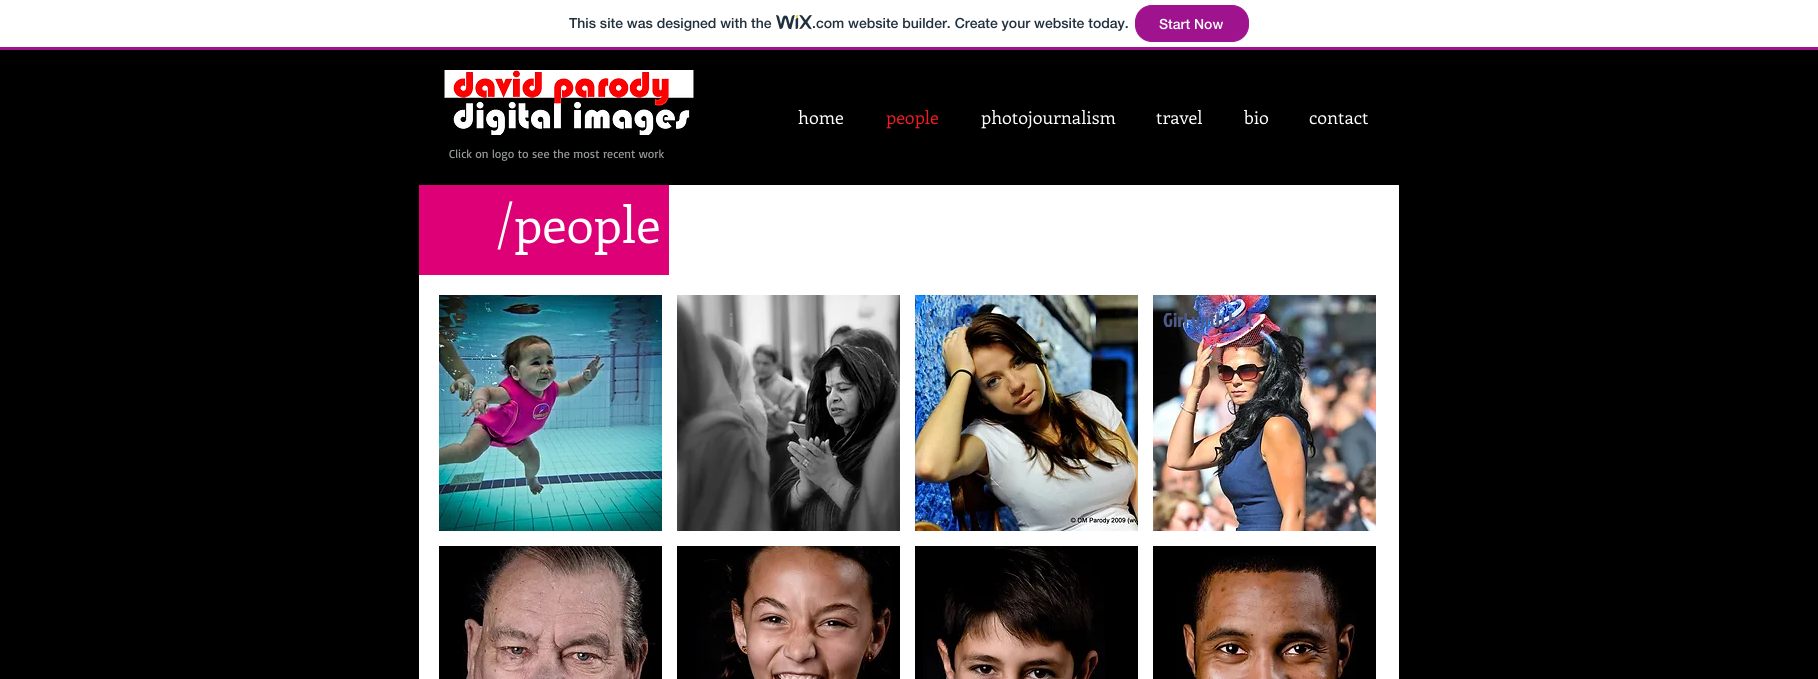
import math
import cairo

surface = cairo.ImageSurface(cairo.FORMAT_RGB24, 1818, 679)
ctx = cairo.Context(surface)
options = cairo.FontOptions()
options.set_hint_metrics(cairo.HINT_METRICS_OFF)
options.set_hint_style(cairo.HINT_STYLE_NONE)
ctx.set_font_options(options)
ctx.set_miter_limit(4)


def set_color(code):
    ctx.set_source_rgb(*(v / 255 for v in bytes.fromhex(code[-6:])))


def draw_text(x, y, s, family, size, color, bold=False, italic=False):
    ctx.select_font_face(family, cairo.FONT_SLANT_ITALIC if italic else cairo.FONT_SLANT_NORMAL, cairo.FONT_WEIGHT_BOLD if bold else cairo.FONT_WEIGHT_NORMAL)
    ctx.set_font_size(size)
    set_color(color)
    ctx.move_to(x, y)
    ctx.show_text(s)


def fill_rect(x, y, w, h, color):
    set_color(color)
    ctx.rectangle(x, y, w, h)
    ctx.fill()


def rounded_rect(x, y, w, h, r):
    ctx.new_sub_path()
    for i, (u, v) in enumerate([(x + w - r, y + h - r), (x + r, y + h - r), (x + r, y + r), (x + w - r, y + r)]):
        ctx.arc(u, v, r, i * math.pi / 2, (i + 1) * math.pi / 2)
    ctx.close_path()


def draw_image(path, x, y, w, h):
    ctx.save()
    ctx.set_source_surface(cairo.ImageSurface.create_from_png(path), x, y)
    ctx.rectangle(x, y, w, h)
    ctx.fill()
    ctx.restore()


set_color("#ffffff")
ctx.paint()
fill_rect(0, 47, 1818, 3, "#a0138e")
draw_text(569, 28, "This site was designed with the", "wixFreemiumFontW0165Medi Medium", 14, "#20303c")
draw_image("assets/img1.png", 776, 15, 36, 15)
draw_text(812, 28, ".com website builder. Create your website today.", "wixFreemiumFontW0165Medi Medium", 14, "#20303c")
set_color("#a0138e")
rounded_rect(1135.5, 5.5, 113, 36, 16.5)
ctx.fill_preserve()
ctx.set_line_width(1)
ctx.stroke()
draw_text(1159, 29, "Start Now", "wixFreemiumFontW0165Medi Medium", 14, "#ffffff")
fill_rect(0, 50, 1818, 629, "#000000")
draw_image("assets/img2.png", 444, 70, 250, 65)
draw_text(798, 124, "home", "Enriqueta", 18, "#ffffff")
draw_text(886, 124, "people", "Enriqueta", 18, "#ed1c24")
draw_text(981, 124, "photojournalism", "Enriqueta", 18, "#ffffff")
draw_text(1156, 124, "travel", "Enriqueta", 18, "#ffffff")
draw_text(1244, 124, "bio", "Enriqueta", 18, "#ffffff")
draw_text(1309, 124, "contact", "Enriqueta", 18, "#ffffff")
draw_text(449, 158, "Click on logo to see the most recent work", "Basic", 12, "#969a9c")
fill_rect(419, 185, 980, 494, "#ffffff")
fill_rect(419, 185, 250, 90, "#dd0076")
draw_text(496, 243, "/people", "Enriqueta", 50, "#ffffff")
draw_image("assets/img3.png", 439, 295, 223, 236)
draw_text(449, 327, "S", "Jockey One", 20, "#1f6b79")
draw_image("assets/img4.png", 677, 295, 223, 236)
draw_text(729, 327, "i", "Jockey One", 20, "#8d8d8d")
draw_image("assets/img5.png", 915, 295, 223, 236)
draw_text(925, 327, "Louise", "Jockey One", 20, "#4f79aa")
draw_image("assets/img6.png", 1153, 295, 223, 236)
draw_text(1163, 327, "Girl with hat", "Jockey One", 20, "#515988")
fill_rect(439, 546, 223, 133, "#000000")
draw_image("assets/img7.png", 463, 546, 194, 133)
fill_rect(677, 546, 223, 133, "#000000")
draw_image("assets/img8.png", 697, 546, 196, 133)
fill_rect(915, 546, 223, 133, "#000000")
draw_image("assets/img9.png", 923, 546, 182, 133)
fill_rect(1153, 546, 223, 133, "#000000")
draw_image("assets/img10.png", 1177, 555, 179, 124)
surface.write_to_png("output.png")
